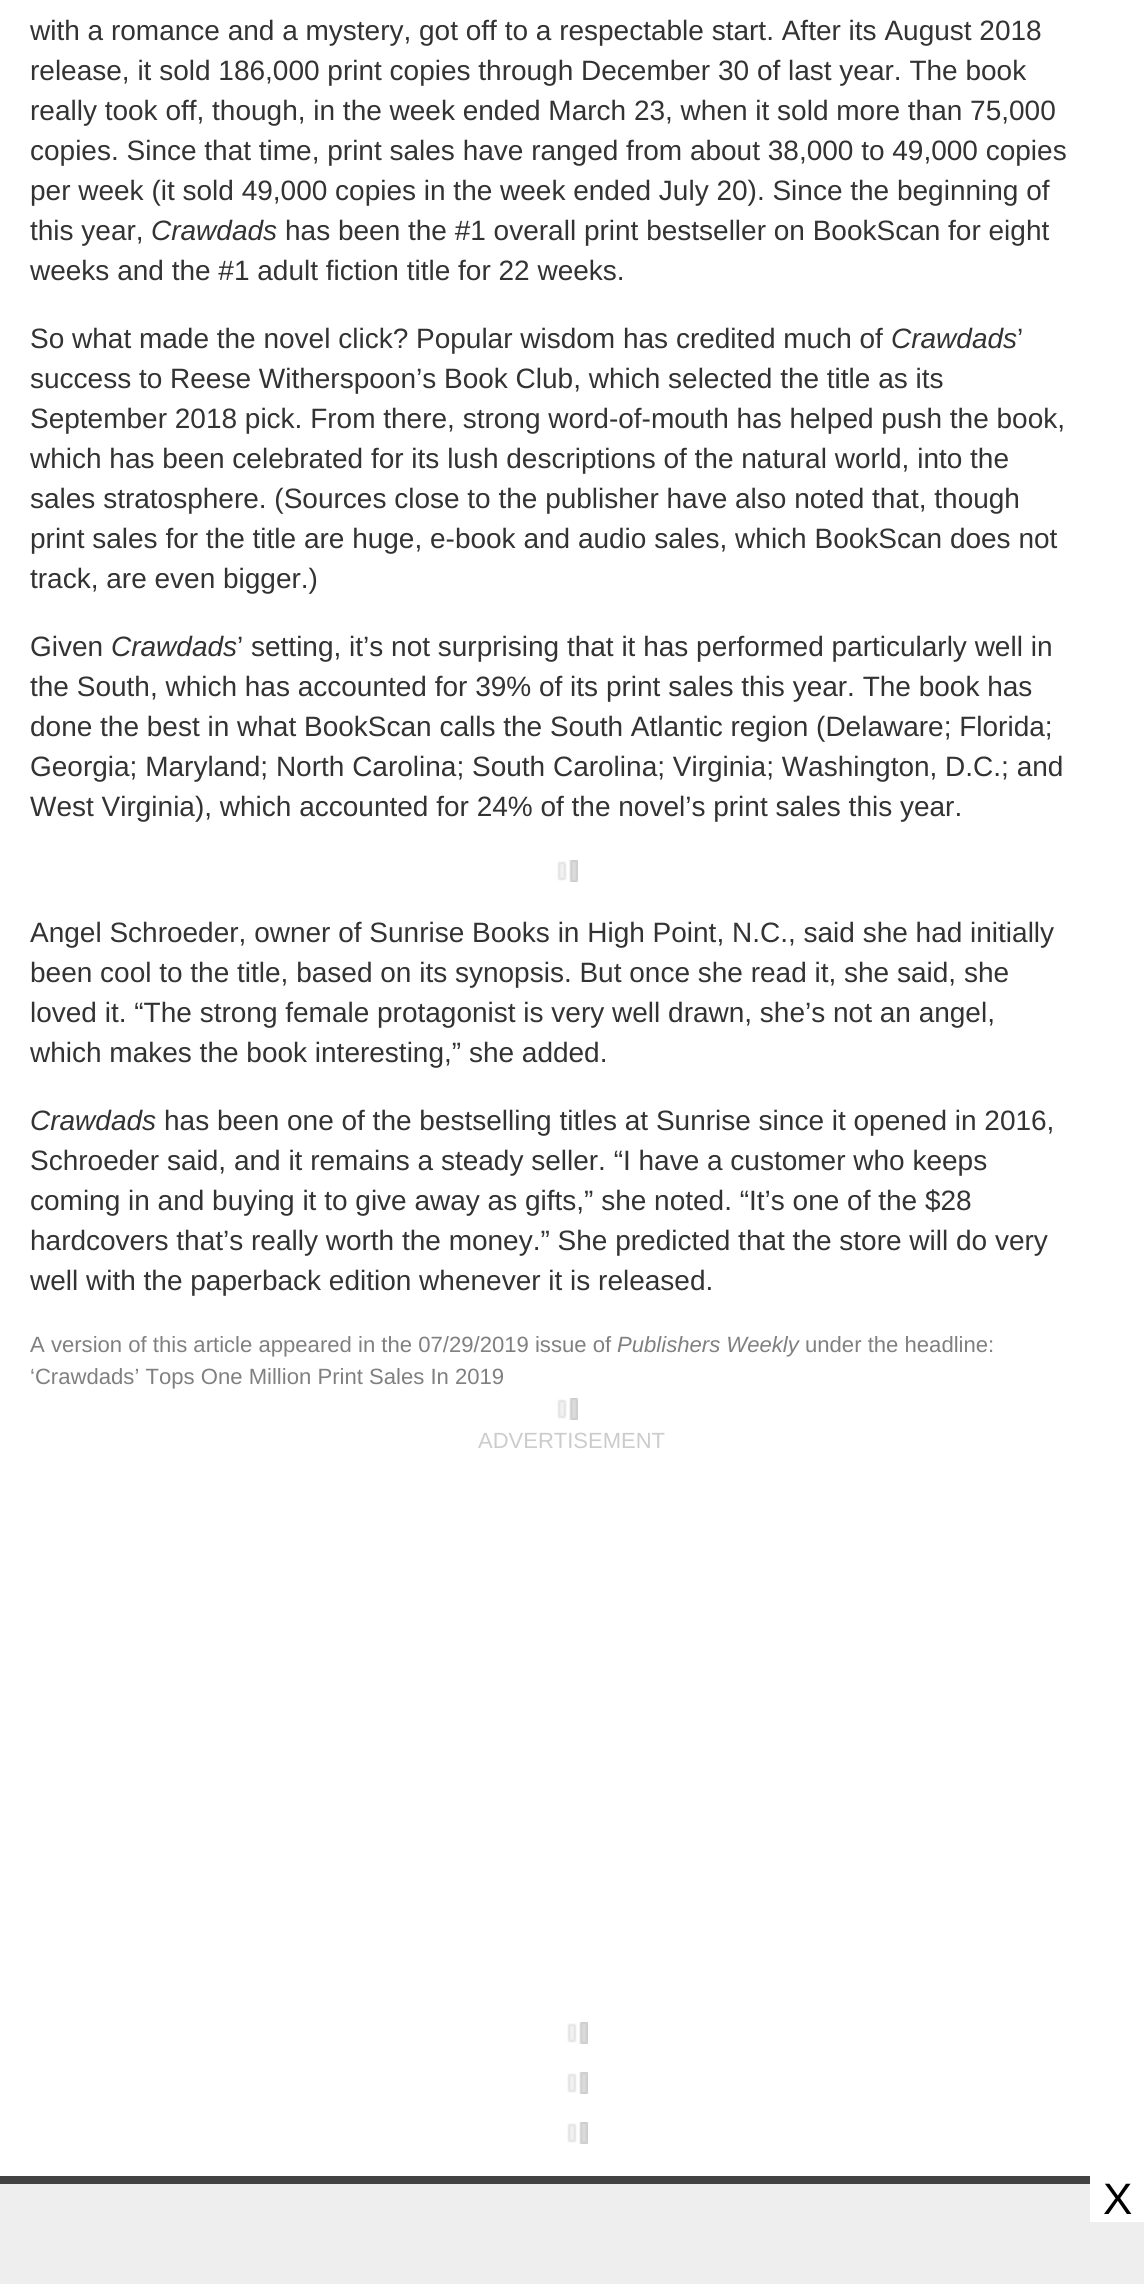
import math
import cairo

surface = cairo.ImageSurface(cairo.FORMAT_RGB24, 1144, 2284)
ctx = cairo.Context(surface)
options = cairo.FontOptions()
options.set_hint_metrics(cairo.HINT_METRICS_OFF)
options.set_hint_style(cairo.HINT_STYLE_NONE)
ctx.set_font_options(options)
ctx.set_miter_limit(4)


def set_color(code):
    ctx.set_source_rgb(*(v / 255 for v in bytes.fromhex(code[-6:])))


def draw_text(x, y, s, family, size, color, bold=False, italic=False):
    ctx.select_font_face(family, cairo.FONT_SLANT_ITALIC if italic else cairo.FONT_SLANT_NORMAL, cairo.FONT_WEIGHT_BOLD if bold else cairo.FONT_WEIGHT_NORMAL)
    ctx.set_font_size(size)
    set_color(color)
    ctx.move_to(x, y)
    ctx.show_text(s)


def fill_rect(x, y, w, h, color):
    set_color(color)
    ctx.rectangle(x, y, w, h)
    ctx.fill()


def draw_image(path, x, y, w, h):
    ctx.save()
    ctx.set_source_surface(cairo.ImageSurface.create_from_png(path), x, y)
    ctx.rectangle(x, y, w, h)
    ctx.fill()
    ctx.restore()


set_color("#ffffff")
ctx.paint()
draw_text(30, 40, "with a romance and a mystery, got off to a respectable start. After its August 2018", "Liberation Sans", 28, "#333333")
draw_text(30, 80, "release, it sold 186,000 print copies through December 30 of last year. The book", "Liberation Sans", 28, "#333333")
draw_text(30, 120, "really took off, though, in the week ended March 23, when it sold more than 75,000", "Liberation Sans", 28, "#333333")
draw_text(30, 160, "copies. Since that time, print sales have ranged from about 38,000 to 49,000 copies", "Liberation Sans", 28, "#333333")
draw_text(30, 200, "per week (it sold 49,000 copies in the week ended July 20). Since the beginning of", "Liberation Sans", 28, "#333333")
draw_text(30, 240, "this year,", "Liberation Sans", 28, "#333333")
draw_text(151, 240, "Crawdads", "Liberation Sans", 28, "#333333", italic=True)
draw_text(285, 240, "has been the #1 overall print bestseller on BookScan for eight", "Liberation Sans", 28, "#333333")
draw_text(30, 280, "weeks and the #1 adult fiction title for 22 weeks.", "Liberation Sans", 28, "#333333")
draw_text(30, 348, "So what made the novel click? Popular wisdom has credited much of", "Liberation Sans", 28, "#333333")
draw_text(891, 348, "Crawdads", "Liberation Sans", 28, "#333333", italic=True)
draw_text(1017, 348, "’", "Liberation Sans", 28, "#333333")
draw_text(30, 388, "success to Reese Witherspoon’s Book Club, which selected the title as its", "Liberation Sans", 28, "#333333")
draw_text(30, 428, "September 2018 pick. From there, strong word-of-mouth has helped push the book,", "Liberation Sans", 28, "#333333")
draw_text(30, 468, "which has been celebrated for its lush descriptions of the natural world, into the", "Liberation Sans", 28, "#333333")
draw_text(30, 508, "sales stratosphere. (Sources close to the publisher have also noted that, though", "Liberation Sans", 28, "#333333")
draw_text(30, 548, "print sales for the title are huge, e-book and audio sales, which BookScan does not", "Liberation Sans", 28, "#333333")
draw_text(30, 588, "track, are even bigger.)", "Liberation Sans", 28, "#333333")
draw_text(30, 656, "Given", "Liberation Sans", 28, "#333333")
draw_text(111, 656, "Crawdads", "Liberation Sans", 28, "#333333", italic=True)
draw_text(237, 656, "’ setting, it’s not surprising that it has performed particularly well in", "Liberation Sans", 28, "#333333")
draw_text(30, 696, "the South, which has accounted for 39% of its print sales this year. The book has", "Liberation Sans", 28, "#333333")
draw_text(30, 736, "done the best in what BookScan calls the South Atlantic region (Delaware; Florida;", "Liberation Sans", 28, "#333333")
draw_text(30, 776, "Georgia; Maryland; North Carolina; South Carolina; Virginia; Washington, D.C.; and", "Liberation Sans", 28, "#333333")
draw_text(30, 816, "West Virginia), which accounted for 24% of the novel’s print sales this year.", "Liberation Sans", 28, "#333333")
draw_image("assets/img1.png", 557, 860, 21, 22)
draw_text(30, 942, "Angel Schroeder, owner of Sunrise Books in High Point, N.C., said she had initially", "Liberation Sans", 28, "#333333")
draw_text(30, 982, "been cool to the title, based on its synopsis. But once she read it, she said, she", "Liberation Sans", 28, "#333333")
draw_text(30, 1022, "loved it. “The strong female protagonist is very well drawn, she’s not an angel,", "Liberation Sans", 28, "#333333")
draw_text(30, 1062, "which makes the book interesting,” she added.", "Liberation Sans", 28, "#333333")
draw_text(30, 1130, "Crawdads", "Liberation Sans", 28, "#333333", italic=True)
draw_text(164, 1130, "has been one of the bestselling titles at Sunrise since it opened in 2016,", "Liberation Sans", 28, "#333333")
draw_text(30, 1170, "Schroeder said, and it remains a steady seller. “I have a customer who keeps", "Liberation Sans", 28, "#333333")
draw_text(30, 1210, "coming in and buying it to give away as gifts,” she noted. “It’s one of the $28", "Liberation Sans", 28, "#333333")
draw_text(30, 1250, "hardcovers that’s really worth the money.” She predicted that the store will do very", "Liberation Sans", 28, "#333333")
draw_text(30, 1290, "well with the paperback edition whenever it is released.", "Liberation Sans", 28, "#333333")
draw_text(30, 1352, "A version of this article appeared in the 07/29/2019 issue of", "Liberation Sans", 22.1, "#808080")
draw_text(617, 1352, "Publishers Weekly", "Liberation Sans", 22.1, "#808080", italic=True)
draw_text(805, 1352, "under the headline:", "Liberation Sans", 22.1, "#808080")
draw_text(30, 1384, "‘Crawdads’ Tops One Million Print Sales In 2019", "Liberation Sans", 22.1, "#808080")
draw_image("assets/img1.png", 557, 1398, 21, 22)
draw_text(478, 1448, "ADVERTISEMENT", "Liberation Sans", 22, "#cccccc")
draw_image("assets/img1.png", 567, 2022, 21, 22)
draw_image("assets/img1.png", 567, 2072, 21, 22)
draw_image("assets/img1.png", 567, 2122, 21, 22)
fill_rect(0, 2176, 1090, 8, "#424242")
fill_rect(0, 2184, 1144, 100, "#eeeeee")
fill_rect(1090, 2184, 54, 38, "#ffffff")
draw_text(1103, 2214, "X", "Liberation Sans", 44, "#000000")
surface.write_to_png("output.png")
